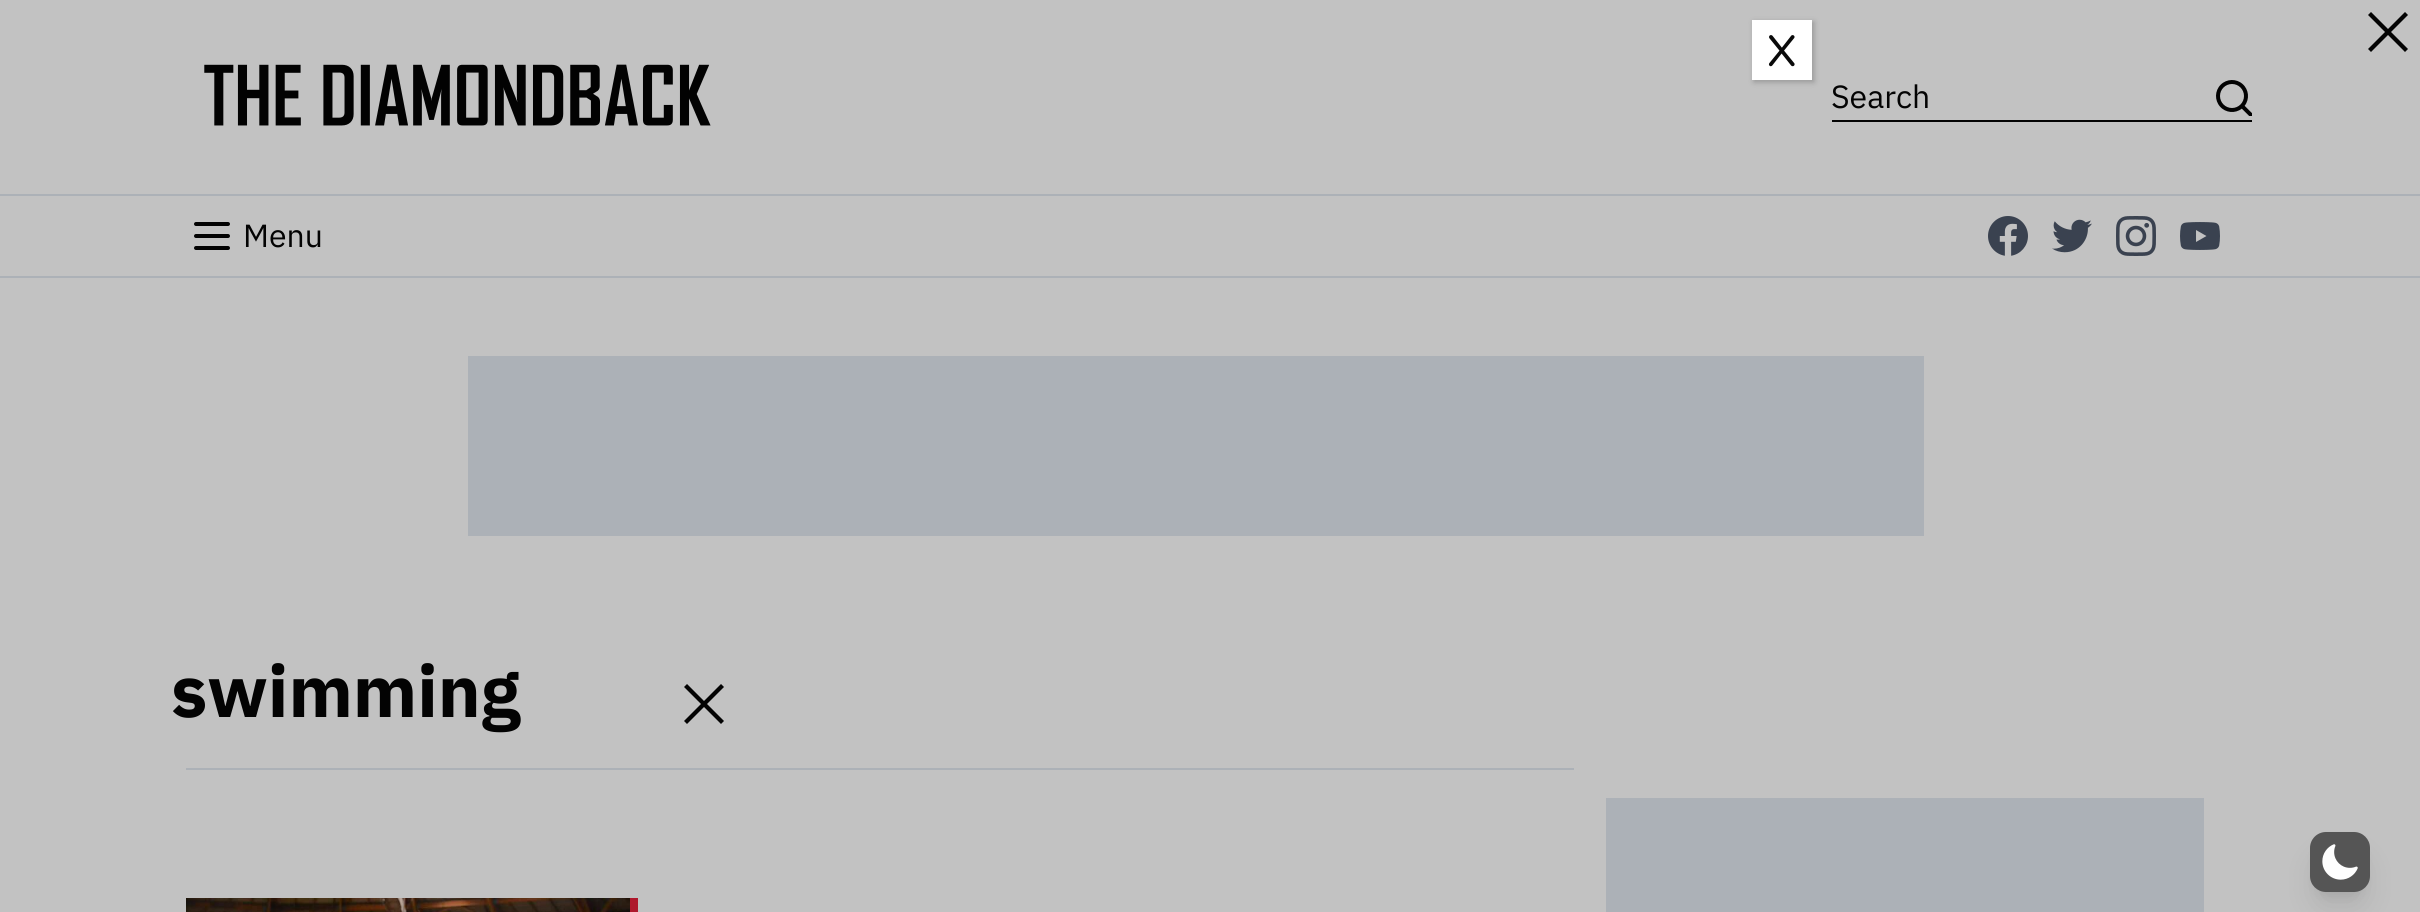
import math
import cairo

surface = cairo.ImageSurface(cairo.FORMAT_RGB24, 2420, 912)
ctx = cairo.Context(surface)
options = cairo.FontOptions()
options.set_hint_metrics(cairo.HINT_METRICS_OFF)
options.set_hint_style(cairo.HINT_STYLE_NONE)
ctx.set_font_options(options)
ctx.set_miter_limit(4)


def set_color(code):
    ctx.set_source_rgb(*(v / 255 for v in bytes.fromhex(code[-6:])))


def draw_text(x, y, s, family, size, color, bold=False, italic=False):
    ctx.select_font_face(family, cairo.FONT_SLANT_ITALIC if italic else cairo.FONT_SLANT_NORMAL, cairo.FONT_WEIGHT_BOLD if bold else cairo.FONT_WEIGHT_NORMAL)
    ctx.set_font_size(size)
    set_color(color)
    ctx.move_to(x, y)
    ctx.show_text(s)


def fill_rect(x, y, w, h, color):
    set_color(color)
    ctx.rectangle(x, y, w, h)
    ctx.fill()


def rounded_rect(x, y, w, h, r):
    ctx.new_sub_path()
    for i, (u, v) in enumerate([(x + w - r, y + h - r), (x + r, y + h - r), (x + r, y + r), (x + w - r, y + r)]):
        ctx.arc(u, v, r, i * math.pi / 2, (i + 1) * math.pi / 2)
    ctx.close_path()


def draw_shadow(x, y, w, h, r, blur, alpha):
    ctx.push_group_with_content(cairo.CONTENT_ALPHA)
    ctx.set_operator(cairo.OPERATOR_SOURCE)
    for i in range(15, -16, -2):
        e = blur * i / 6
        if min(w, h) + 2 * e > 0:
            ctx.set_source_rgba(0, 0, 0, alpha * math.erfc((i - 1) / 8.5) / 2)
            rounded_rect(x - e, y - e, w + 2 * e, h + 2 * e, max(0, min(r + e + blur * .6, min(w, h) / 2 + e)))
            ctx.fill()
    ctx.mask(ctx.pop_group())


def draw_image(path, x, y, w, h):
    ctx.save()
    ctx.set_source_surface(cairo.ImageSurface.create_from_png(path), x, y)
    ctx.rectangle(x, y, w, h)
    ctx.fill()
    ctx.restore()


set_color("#c2c2c2")
ctx.paint()
set_color("#020202")
draw_shadow(1754, 22, 60, 60, 0, 3, 0.23)
fill_rect(1752, 20, 60, 60, "#ffffff")
draw_text(1767, 66, "X", "Varela Round", 44, "#0a0a0a")
set_color("#030303")
ctx.new_path()
ctx.move_to(2388, 29)
ctx.line_to(2371, 12)
ctx.line_to(2368, 15)
ctx.line_to(2385, 32)
ctx.line_to(2368, 49)
ctx.line_to(2371, 52)
ctx.line_to(2388, 35)
ctx.line_to(2405, 52)
ctx.line_to(2408, 49)
ctx.line_to(2391, 32)
ctx.line_to(2408, 15)
ctx.line_to(2405, 12)
ctx.close_path()
ctx.fill()
draw_image("assets/img1.png", 204, 64, 507, 62)
fill_rect(1832, 120, 420, 2, "#030303")
draw_text(1831, 108, "Search", "IBM Plex Sans", 32, "#030303")
draw_image("assets/img2.png", 2216, 80, 36, 36)
fill_rect(0, 194, 2420, 2, "#acb1b7")
fill_rect(0, 276, 2420, 2, "#acb1b7")
draw_image("assets/img3.png", 194, 222, 36, 28)
draw_text(243, 247, "Menu", "IBM Plex Sans", 32, "#030303")
draw_image("assets/img4.png", 1988, 216, 40, 40)
draw_image("assets/img5.png", 2052, 219, 40, 34)
draw_image("assets/img6.png", 2116, 216, 40, 40)
draw_image("assets/img7.png", 2180, 222, 40, 28)
fill_rect(468, 356, 1456, 180, "#acb1b7")
draw_text(171, 717, "swimming", "IBM Plex Sans", 72, "#030303", bold=True)
ctx.new_path()
ctx.move_to(704, 701)
ctx.line_to(687, 684)
ctx.line_to(684, 687)
ctx.line_to(701, 704)
ctx.line_to(684, 721)
ctx.line_to(687, 724)
ctx.line_to(704, 707)
ctx.line_to(721, 724)
ctx.line_to(724, 721)
ctx.line_to(707, 704)
ctx.line_to(724, 687)
ctx.line_to(721, 684)
ctx.close_path()
ctx.fill()
fill_rect(186, 768, 1388, 2, "#acb1b7")
fill_rect(630, 898, 8, 14, "#ae182c")
draw_image("assets/img8.png", 186, 898, 444, 14)
fill_rect(1606, 798, 598, 114, "#acb1b7")
set_color("#000000")
draw_shadow(2318, 848, 44, 44, 8, 6, 0.1)
draw_shadow(2316, 858, 48, 48, 10, 15, 0.1)
set_color("#555555")
rounded_rect(2310, 832, 60, 60, 16)
ctx.fill()
draw_image("assets/img9.png", 2322, 844, 36, 36)
surface.write_to_png("output.png")
